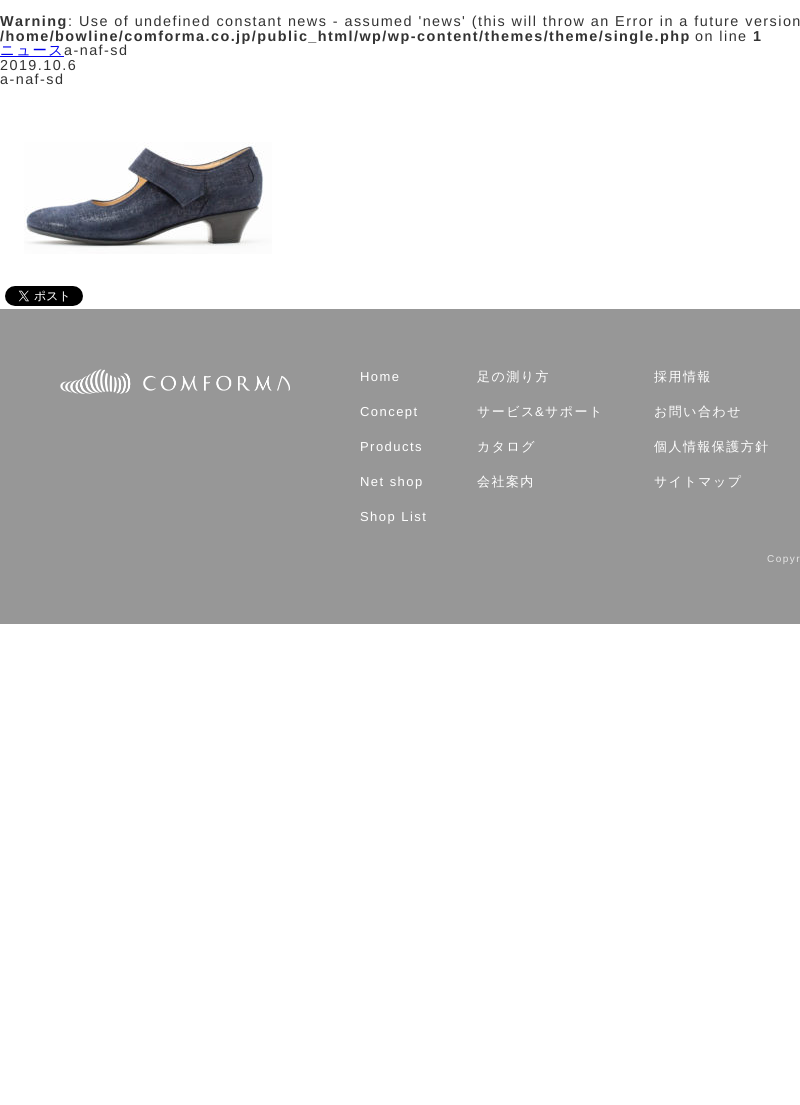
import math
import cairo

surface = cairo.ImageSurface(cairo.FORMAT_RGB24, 800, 1105)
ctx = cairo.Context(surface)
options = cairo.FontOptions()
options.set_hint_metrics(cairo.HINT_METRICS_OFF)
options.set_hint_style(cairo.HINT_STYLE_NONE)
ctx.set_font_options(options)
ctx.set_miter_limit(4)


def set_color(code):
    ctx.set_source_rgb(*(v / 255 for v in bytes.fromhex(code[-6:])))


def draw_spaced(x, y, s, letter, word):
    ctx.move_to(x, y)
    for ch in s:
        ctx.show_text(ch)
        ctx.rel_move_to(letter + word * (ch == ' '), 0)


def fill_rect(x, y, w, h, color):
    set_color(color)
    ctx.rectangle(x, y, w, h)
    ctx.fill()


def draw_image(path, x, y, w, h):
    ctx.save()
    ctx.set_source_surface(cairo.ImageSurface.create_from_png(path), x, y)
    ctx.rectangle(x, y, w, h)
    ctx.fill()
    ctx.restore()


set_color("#ffffff")
ctx.paint()
ctx.select_font_face("Liberation Sans", cairo.FONT_SLANT_NORMAL, cairo.FONT_WEIGHT_BOLD)
ctx.set_font_size(14.4)
set_color("#333333")
draw_spaced(0, 26, "Warning", 1.45, 0)
ctx.select_font_face("Liberation Sans")
draw_spaced(68, 26, ": Use of undefined constant news - assumed 'news' (this will throw an Error in a future version", 1.45, 0)
ctx.select_font_face("Liberation Sans", cairo.FONT_SLANT_NORMAL, cairo.FONT_WEIGHT_BOLD)
draw_spaced(0, 41, "/home/bowline/comforma.co.jp/public_html/wp/wp-content/themes/theme/single.php", 1.45, 0)
ctx.select_font_face("Liberation Sans")
draw_spaced(695, 41, "on line", 1.45, 0)
ctx.select_font_face("Liberation Sans", cairo.FONT_SLANT_NORMAL, cairo.FONT_WEIGHT_BOLD)
draw_spaced(753, 41, "1", 1.45, 0)
ctx.select_font_face("WenQuanYi Zen Hei Medium")
set_color("#0000ee")
draw_spaced(0, 55, "ニュース", 1.45, 0)
fill_rect(0, 56, 64, 1, "#0000ee")
ctx.select_font_face("Liberation Sans")
set_color("#333333")
draw_spaced(64, 55, "a-naf-sd", 1.45, 0)
draw_spaced(0, 70, "2019.10.6", 1.45, 0)
draw_spaced(0, 84, "a-naf-sd", 1.45, 0)
draw_image("assets/img1.png", 24, 142, 248, 112)
draw_image("assets/img2.png", 5, 286, 78, 20)
fill_rect(0, 309, 800, 315, "#979797")
draw_image("assets/img3.png", 60, 369, 230, 25)
ctx.set_font_size(13)
set_color("#ffffff")
draw_spaced(360, 381, "Home", 1.45, 0)
draw_spaced(360, 416, "Concept", 1.45, 0)
draw_spaced(360, 451, "Products", 1.45, 0)
draw_spaced(360, 486, "Net shop", 1.45, 0)
draw_spaced(360, 521, "Shop List", 1.45, 0)
ctx.select_font_face("WenQuanYi Zen Hei Medium")
draw_spaced(477, 381, "足の測り方", 1.45, 0)
draw_spaced(477, 416, "サービス", 1.45, 0)
ctx.select_font_face("Liberation Sans")
draw_spaced(535, 416, "&", 1.45, 0)
ctx.select_font_face("WenQuanYi Zen Hei Medium")
draw_spaced(545, 416, "サポート", 1.45, 0)
draw_spaced(477, 451, "カタログ", 1.45, 0)
draw_spaced(477, 486, "会社案内", 1.45, 0)
draw_spaced(654, 381, "採用情報", 1.45, 0)
draw_spaced(654, 416, "お問い合わせ", 1.45, 0)
draw_spaced(654, 451, "個人情報保護方針", 1.45, 0)
draw_spaced(654, 486, "サイトマップ", 1.45, 0)
ctx.select_font_face("Liberation Sans")
ctx.set_font_size(10)
set_color("#e4e4e4")
draw_spaced(767, 562, "Copyr", 1.45, 0)
surface.write_to_png("output.png")
